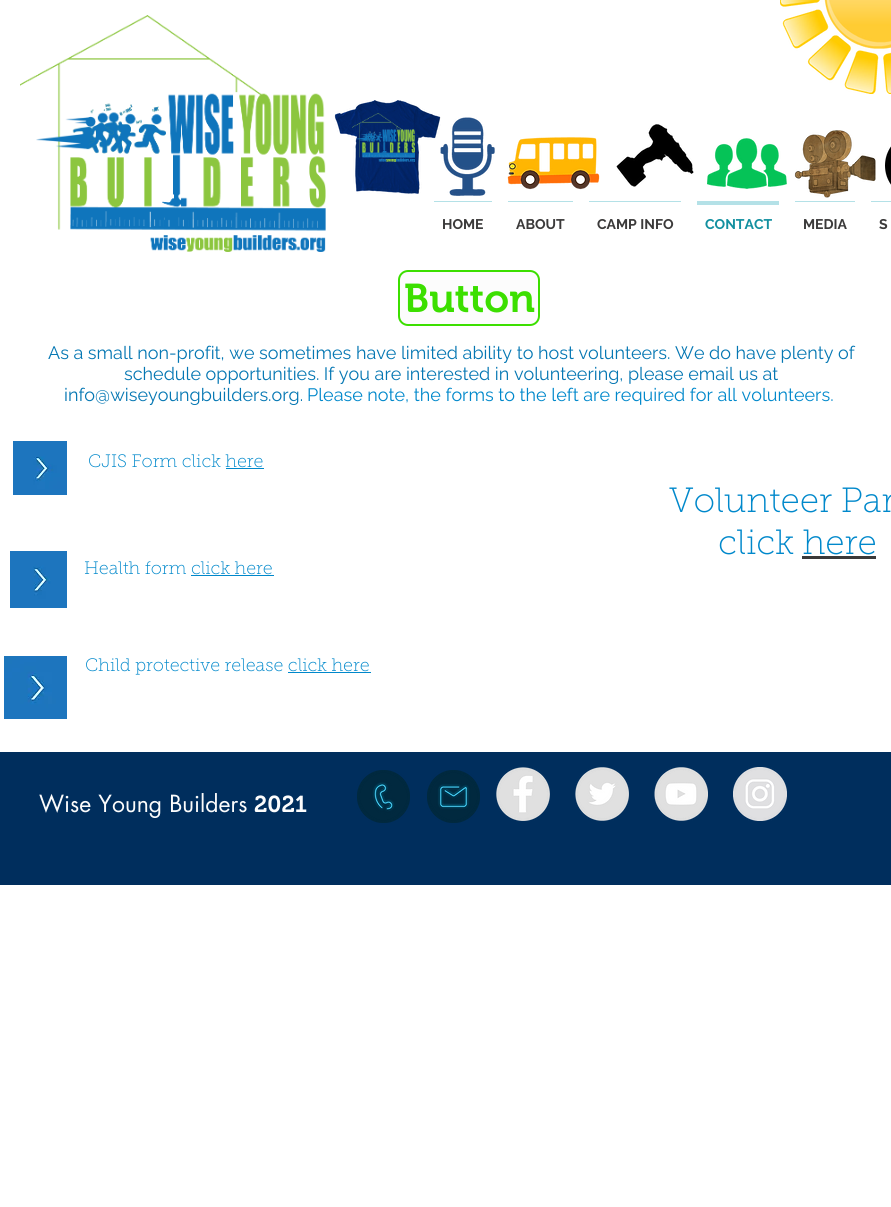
import math
import cairo

surface = cairo.ImageSurface(cairo.FORMAT_RGB24, 891, 1207)
ctx = cairo.Context(surface)
options = cairo.FontOptions()
options.set_hint_metrics(cairo.HINT_METRICS_OFF)
options.set_hint_style(cairo.HINT_STYLE_NONE)
ctx.set_font_options(options)
ctx.set_miter_limit(4)


def set_color(code):
    ctx.set_source_rgb(*(v / 255 for v in bytes.fromhex(code[-6:])))


def draw_text(x, y, s, family, size, color, bold=False, italic=False):
    ctx.select_font_face(family, cairo.FONT_SLANT_ITALIC if italic else cairo.FONT_SLANT_NORMAL, cairo.FONT_WEIGHT_BOLD if bold else cairo.FONT_WEIGHT_NORMAL)
    ctx.set_font_size(size)
    set_color(color)
    ctx.move_to(x, y)
    ctx.show_text(s)


def fill_rect(x, y, w, h, color):
    set_color(color)
    ctx.rectangle(x, y, w, h)
    ctx.fill()


def rounded_rect(x, y, w, h, r):
    ctx.new_sub_path()
    for i, (u, v) in enumerate([(x + w - r, y + h - r), (x + r, y + h - r), (x + r, y + r), (x + w - r, y + r)]):
        ctx.arc(u, v, r, i * math.pi / 2, (i + 1) * math.pi / 2)
    ctx.close_path()


def draw_image(path, x, y, w, h):
    ctx.save()
    ctx.set_source_surface(cairo.ImageSurface.create_from_png(path), x, y)
    ctx.rectangle(x, y, w, h)
    ctx.fill()
    ctx.restore()


set_color("#ffffff")
ctx.paint()
draw_image("assets/img1.png", 20, 15, 306, 237)
draw_image("assets/img2.png", 334, 100, 107, 94)
draw_image("assets/img3.png", 780, 0, 111, 94)
draw_image("assets/img4.png", 352, 113, 63, 49)
draw_image("assets/img5.png", 440, 117, 55, 79)
draw_image("assets/img6.png", 507, 137, 93, 53)
draw_image("assets/img7.png", 616, 124, 78, 63)
draw_image("assets/img8.png", 707, 138, 80, 51)
draw_image("assets/img9.png", 794, 130, 82, 68)
draw_image("assets/img10.png", 885, 146, 6, 39)
fill_rect(434, 201, 58, 1, "#b4e1e7")
draw_text(442, 229, "HOME", "Raleway", 14, "#3b3a3a", bold=True)
fill_rect(508, 201, 65, 1, "#b4e1e7")
draw_text(516, 229, "ABOUT", "Raleway", 14, "#3b3a3a", bold=True)
fill_rect(589, 201, 92, 1, "#b4e1e7")
draw_text(597, 229, "CAMP INFO", "Raleway", 14, "#3b3a3a", bold=True)
fill_rect(697, 201, 82, 4, "#b4e1e7")
draw_text(705, 229, "CONTACT", "Raleway", 14, "#1390a0", bold=True)
fill_rect(795, 201, 60, 1, "#b4e1e7")
draw_text(803, 229, "MEDIA", "Raleway", 14, "#3b3a3a", bold=True)
fill_rect(871, 201, 20, 1, "#b4e1e7")
draw_text(879, 229, "S", "Raleway", 14, "#3b3a3a", bold=True)
set_color("#fcfcfc")
rounded_rect(399, 271, 140, 54, 9)
ctx.fill_preserve()
set_color("#3cdf00")
ctx.stroke()
draw_text(404, 312, "Button", "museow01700 SemiBold", 40, "#3cdf00")
draw_text(48, 359, "As a small non-profit, we sometimes have limited ability to host volunteers. We do have plenty of", "Raleway", 18, "#0577b3")
draw_text(124, 380, "schedule opportunities. If you are interested in volunteering, please email us at", "Raleway", 18, "#0577b3")
draw_text(64, 401, "info@wiseyoungbuilders.org.", "Raleway", 18, "#0577b3")
draw_text(307, 401, "Please note, the forms to the left are required for all volunteers.", "Raleway", 18, "#0088cb")
draw_image("assets/img11.png", 13, 441, 54, 54)
draw_text(88, 467, "CJIS Form click here", "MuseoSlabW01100 Thin", 18, "#0088cb")
fill_rect(226, 468, 38, 1, "#0088cb")
draw_text(669, 512, "Volunteer Par", "MuseoSlabW01100 Thin", 35, "#0088cb")
draw_text(718, 554, "click here", "MuseoSlabW01100 Thin", 35, "#0088cb")
fill_rect(802, 556, 74, 3, "#3b3a3a")
draw_image("assets/img12.png", 10, 551, 57, 57)
draw_text(84, 574, "Health form click here", "MuseoSlabW01100 Thin", 18, "#0088cb")
fill_rect(191, 575, 83, 1, "#0088cb")
draw_image("assets/img13.png", 4, 656, 63, 63)
draw_text(85, 671, "Child protective release click here", "MuseoSlabW01100 Thin", 18, "#0088cb")
fill_rect(288, 672, 83, 1, "#0088cb")
fill_rect(0, 752, 891, 133, "#002e5d")
draw_text(39, 812, "Wise Young Builders", "futura", 23, "#fcfcfc")
draw_text(254, 812, "2021", "museow01700 SemiBold", 23, "#fcfcfc")
draw_image("assets/img14.png", 357, 770, 53, 53)
draw_image("assets/img15.png", 427, 770, 53, 53)
draw_image("assets/img16.png", 496, 767, 54, 54)
draw_image("assets/img17.png", 575, 767, 54, 54)
draw_image("assets/img18.png", 654, 767, 54, 54)
draw_image("assets/img19.png", 733, 767, 54, 54)
surface.write_to_png("output.png")
